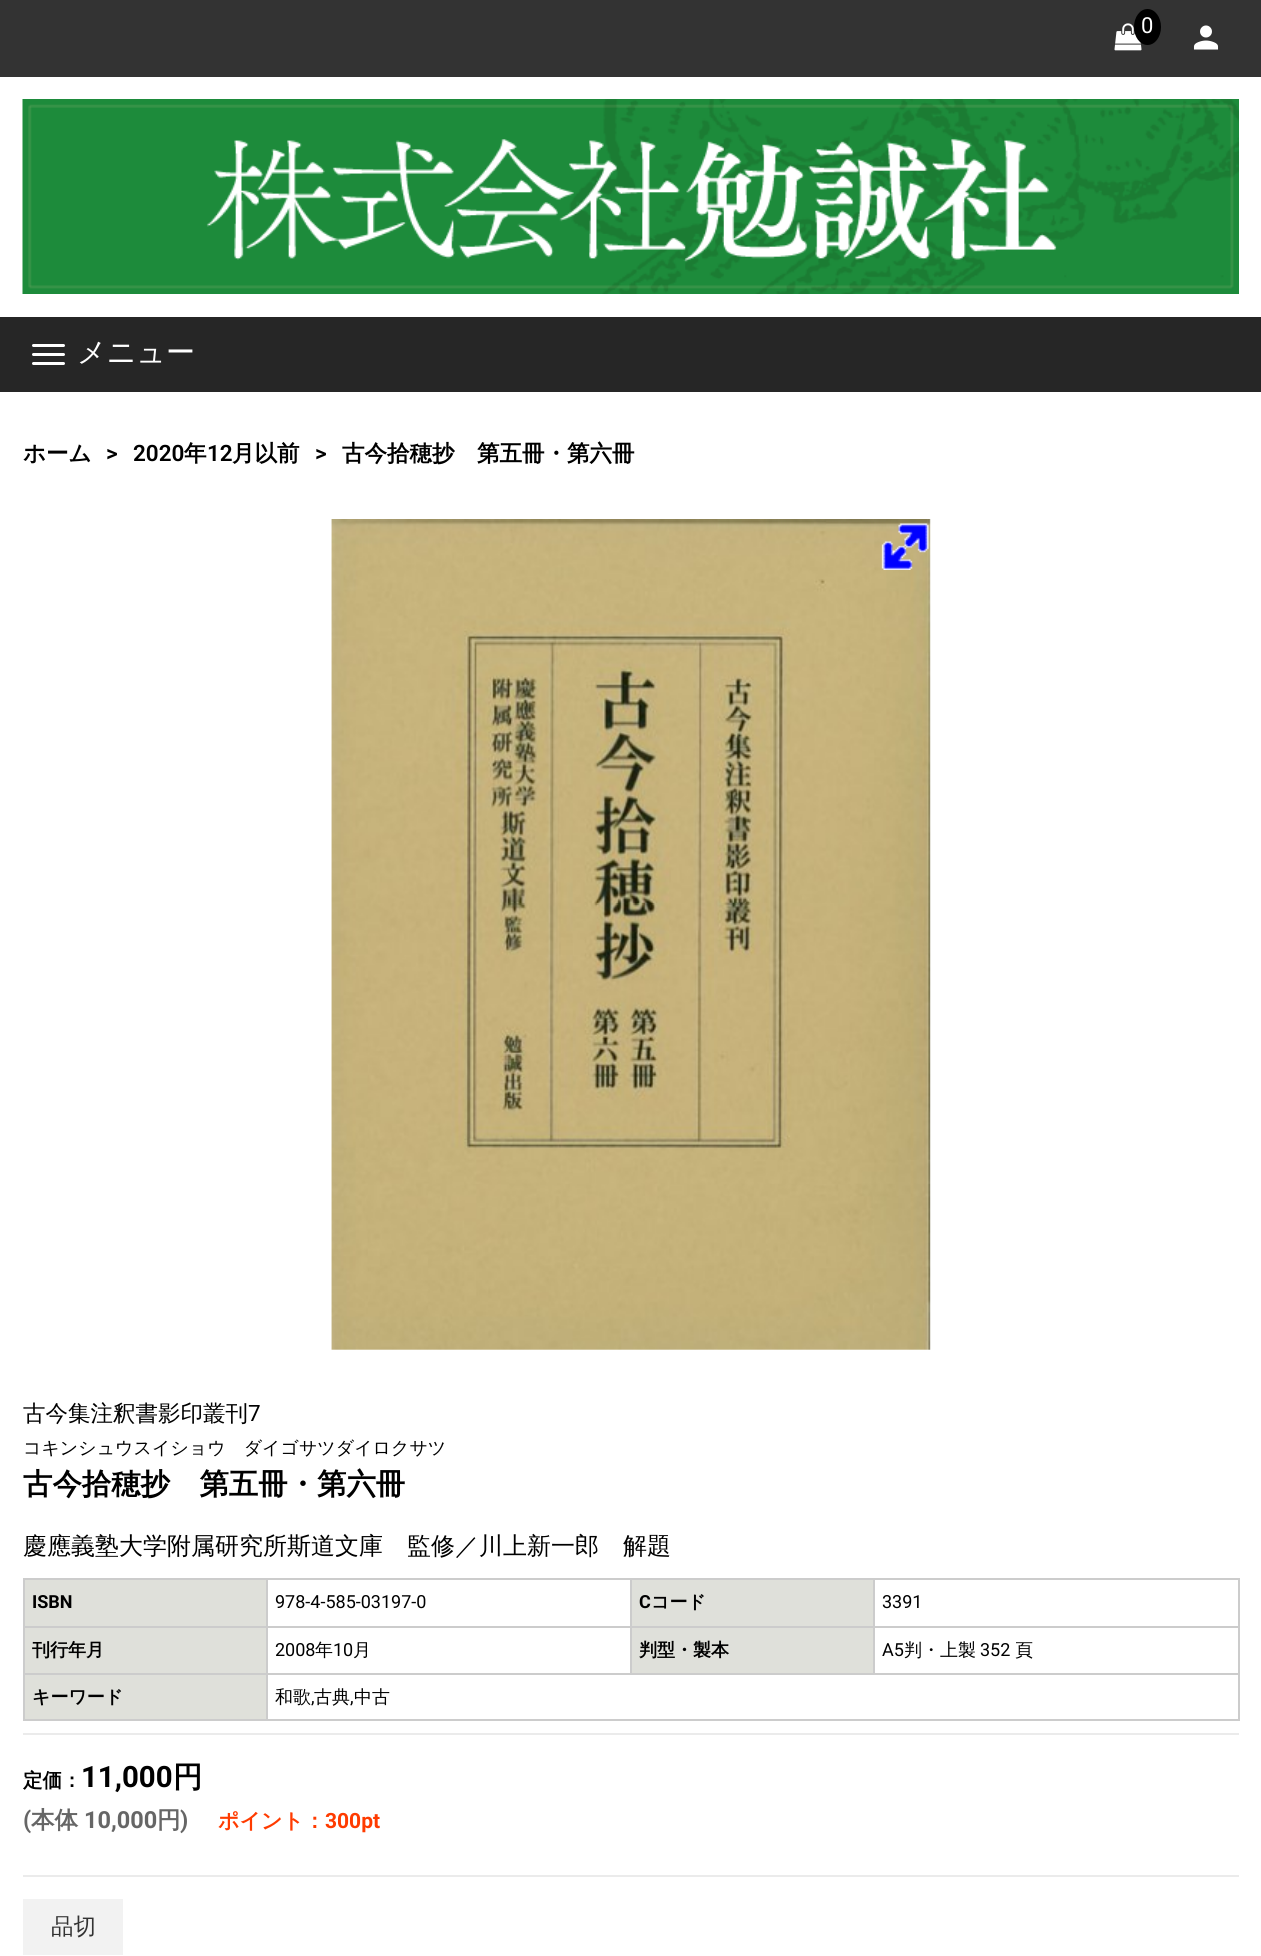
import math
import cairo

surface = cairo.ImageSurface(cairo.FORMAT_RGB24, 1261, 1956)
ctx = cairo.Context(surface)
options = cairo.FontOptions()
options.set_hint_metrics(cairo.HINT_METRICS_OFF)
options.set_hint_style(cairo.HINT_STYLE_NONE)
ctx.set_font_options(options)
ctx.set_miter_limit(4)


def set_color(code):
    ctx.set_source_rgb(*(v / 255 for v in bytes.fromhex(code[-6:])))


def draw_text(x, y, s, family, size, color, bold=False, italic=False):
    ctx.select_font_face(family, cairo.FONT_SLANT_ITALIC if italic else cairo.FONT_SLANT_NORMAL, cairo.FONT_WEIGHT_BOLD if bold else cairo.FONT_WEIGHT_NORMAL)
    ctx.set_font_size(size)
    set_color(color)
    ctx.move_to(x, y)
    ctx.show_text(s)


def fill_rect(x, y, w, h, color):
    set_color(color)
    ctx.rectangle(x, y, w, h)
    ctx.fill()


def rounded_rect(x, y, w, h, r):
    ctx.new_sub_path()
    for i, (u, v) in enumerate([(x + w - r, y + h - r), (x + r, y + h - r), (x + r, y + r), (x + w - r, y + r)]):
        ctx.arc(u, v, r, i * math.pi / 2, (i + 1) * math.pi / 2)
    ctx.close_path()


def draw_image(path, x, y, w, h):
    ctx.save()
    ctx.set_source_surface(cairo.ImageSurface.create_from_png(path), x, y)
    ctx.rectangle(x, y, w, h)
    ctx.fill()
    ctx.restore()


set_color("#ffffff")
ctx.paint()
fill_rect(0, 0, 1261, 77, "#333333")
draw_image("assets/img1.png", 1114, 23, 28, 28)
set_color("#000000")
ctx.new_path()
ctx.move_to(1147.5, 9)
ctx.curve_to(1155, 9, 1161, 17, 1161, 27)
ctx.curve_to(1161, 37, 1155, 45, 1147.5, 45)
ctx.curve_to(1140, 45, 1134, 37, 1134, 27)
ctx.curve_to(1134, 17, 1140, 9, 1147.5, 9)
ctx.close_path()
ctx.fill()
draw_text(1141, 33, "0", "Roboto", 22, "#ffffff")
draw_image("assets/img2.png", 1193, 25, 26, 25)
draw_image("assets/img3.png", 22, 99, 1217, 195)
fill_rect(0, 317, 1261, 75, "#262626")
set_color("#ffffff")
rounded_rect(32, 344, 33, 3, 1.5)
ctx.fill()
draw_text(77, 362, "メニュー", "WenQuanYi Zen Hei Medium", 29, "#ffffff")
rounded_rect(32, 353, 33, 3, 1.5)
ctx.fill()
rounded_rect(32, 362, 33, 3, 1.5)
ctx.fill()
draw_text(23, 461, "ホーム", "WenQuanYi Zen Hei", 22.5, "#000000", bold=True)
draw_text(106, 461, ">", "Roboto SemiBold", 22.5, "#000000")
draw_text(133, 461, "2020", "Roboto SemiBold", 22.5, "#000000")
draw_text(184, 461, "年", "WenQuanYi Zen Hei", 22.5, "#000000", bold=True)
draw_text(207, 461, "12", "Roboto SemiBold", 22.5, "#000000")
draw_text(232, 461, "月以前", "WenQuanYi Zen Hei", 22.5, "#000000", bold=True)
draw_text(315, 461, ">", "Roboto SemiBold", 22.5, "#000000")
draw_text(342, 461, "古今拾穂抄　第五冊・第六冊", "WenQuanYi Zen Hei", 22.5, "#000000", bold=True)
draw_image("assets/img4.png", 331, 519, 600, 831)
draw_image("assets/img5.png", 881, 523, 48, 47)
draw_text(23, 1421, "古今集注釈書影印叢刊", "WenQuanYi Zen Hei Medium", 22.5, "#000000")
draw_text(248, 1421, "7", "Roboto", 22.5, "#000000")
draw_text(23, 1454, "コキンシュウスイショウ　ダイゴサツダイロクサツ", "WenQuanYi Zen Hei Medium", 18, "#000000")
draw_text(23, 1494, "古今拾穂抄　第五冊・第六冊", "WenQuanYi Zen Hei", 29.4, "#000000", bold=True)
draw_text(23, 1554, "慶應義塾大学附属研究所斯道文庫　監修／川上新一郎　解題", "WenQuanYi Zen Hei Medium", 24, "#000000")
fill_rect(23, 1578, 1216, 2, "#cccccc")
fill_rect(1238, 1578, 2, 143, "#cccccc")
fill_rect(23, 1719, 1216, 2, "#cccccc")
fill_rect(23, 1578, 2, 143, "#cccccc")
fill_rect(25, 1580, 241, 46, "#dfe0da")
draw_text(32, 1608, "ISBN", "Roboto", 18, "#000000", bold=True)
fill_rect(873, 1626, 366, 2, "#cccccc")
fill_rect(266, 1673, 973, 2, "#cccccc")
fill_rect(873, 1626, 2, 48, "#cccccc")
fill_rect(630, 1626, 245, 2, "#cccccc")
fill_rect(630, 1626, 2, 48, "#cccccc")
fill_rect(266, 1626, 366, 2, "#cccccc")
fill_rect(266, 1673, 2, 48, "#cccccc")
fill_rect(23, 1673, 244, 2, "#cccccc")
fill_rect(266, 1626, 2, 48, "#cccccc")
fill_rect(23, 1626, 244, 2, "#cccccc")
fill_rect(266, 1578, 2, 50, "#cccccc")
draw_text(275, 1608, "978-4-585-03197-0", "Roboto", 18, "#000000")
fill_rect(632, 1580, 241, 46, "#dfe0da")
fill_rect(630, 1578, 2, 50, "#cccccc")
draw_text(639, 1608, "C", "Roboto", 18, "#000000", bold=True)
draw_text(651, 1608, "コード", "WenQuanYi Zen Hei", 18, "#000000", bold=True)
fill_rect(873, 1578, 2, 50, "#cccccc")
draw_text(882, 1608, "3391", "Roboto", 18, "#000000")
fill_rect(25, 1628, 241, 45, "#dfe0da")
draw_text(32, 1656, "刊行年月", "WenQuanYi Zen Hei", 18, "#000000", bold=True)
draw_text(275, 1656, "2008", "Roboto", 18, "#000000")
draw_text(315, 1656, "年", "WenQuanYi Zen Hei Medium", 18, "#000000")
draw_text(333, 1656, "10", "Roboto", 18, "#000000")
draw_text(353, 1656, "月", "WenQuanYi Zen Hei Medium", 18, "#000000")
fill_rect(632, 1628, 241, 45, "#dfe0da")
draw_text(639, 1656, "判型・製本", "WenQuanYi Zen Hei", 18, "#000000", bold=True)
draw_text(882, 1656, "A5", "Roboto", 18, "#000000")
draw_text(904, 1656, "判・上製", "WenQuanYi Zen Hei Medium", 18, "#000000")
draw_text(980, 1656, "352", "Roboto", 18, "#000000")
draw_text(1015, 1656, "頁", "WenQuanYi Zen Hei Medium", 18, "#000000")
fill_rect(25, 1675, 241, 44, "#dfe0da")
draw_text(32, 1703, "キーワード", "WenQuanYi Zen Hei", 18, "#000000", bold=True)
draw_text(275, 1703, "和歌", "WenQuanYi Zen Hei Medium", 18, "#000000")
draw_text(311, 1703, ",", "Roboto", 18, "#000000")
draw_text(314, 1703, "古典", "WenQuanYi Zen Hei Medium", 18, "#000000")
draw_text(350, 1703, ",", "Roboto", 18, "#000000")
draw_text(354, 1703, "中古", "WenQuanYi Zen Hei Medium", 18, "#000000")
fill_rect(23, 1733, 1216, 2, "#ebebeb")
fill_rect(23, 1875, 1216, 2, "#ebebeb")
draw_text(23, 1787, "定価：", "WenQuanYi Zen Hei", 19.5, "#000000", bold=True)
draw_text(81, 1787, "11,000", "Roboto", 29.4, "#000000", bold=True)
draw_text(173, 1787, "円", "WenQuanYi Zen Hei", 29.4, "#000000", bold=True)
draw_text(23, 1828, "(", "Roboto", 23.5, "#666666", bold=True)
draw_text(31, 1828, "本体", "WenQuanYi Zen Hei", 23.5, "#666666", bold=True)
draw_text(84, 1828, "10,000", "Roboto", 23.5, "#666666", bold=True)
draw_text(157, 1828, "円", "WenQuanYi Zen Hei", 23.5, "#666666", bold=True)
draw_text(180, 1828, ")", "Roboto", 23.5, "#666666", bold=True)
draw_text(218, 1828, "ポイント：", "WenQuanYi Zen Hei", 21, "#ff3b00", bold=True)
draw_text(325, 1828, "300pt", "Roboto", 21, "#ff3b00", bold=True)
fill_rect(23, 1899, 100, 56, "#f2f2f2")
draw_text(51, 1934, "品切", "WenQuanYi Zen Hei Medium", 22.5, "#333333")
surface.write_to_png("output.png")
